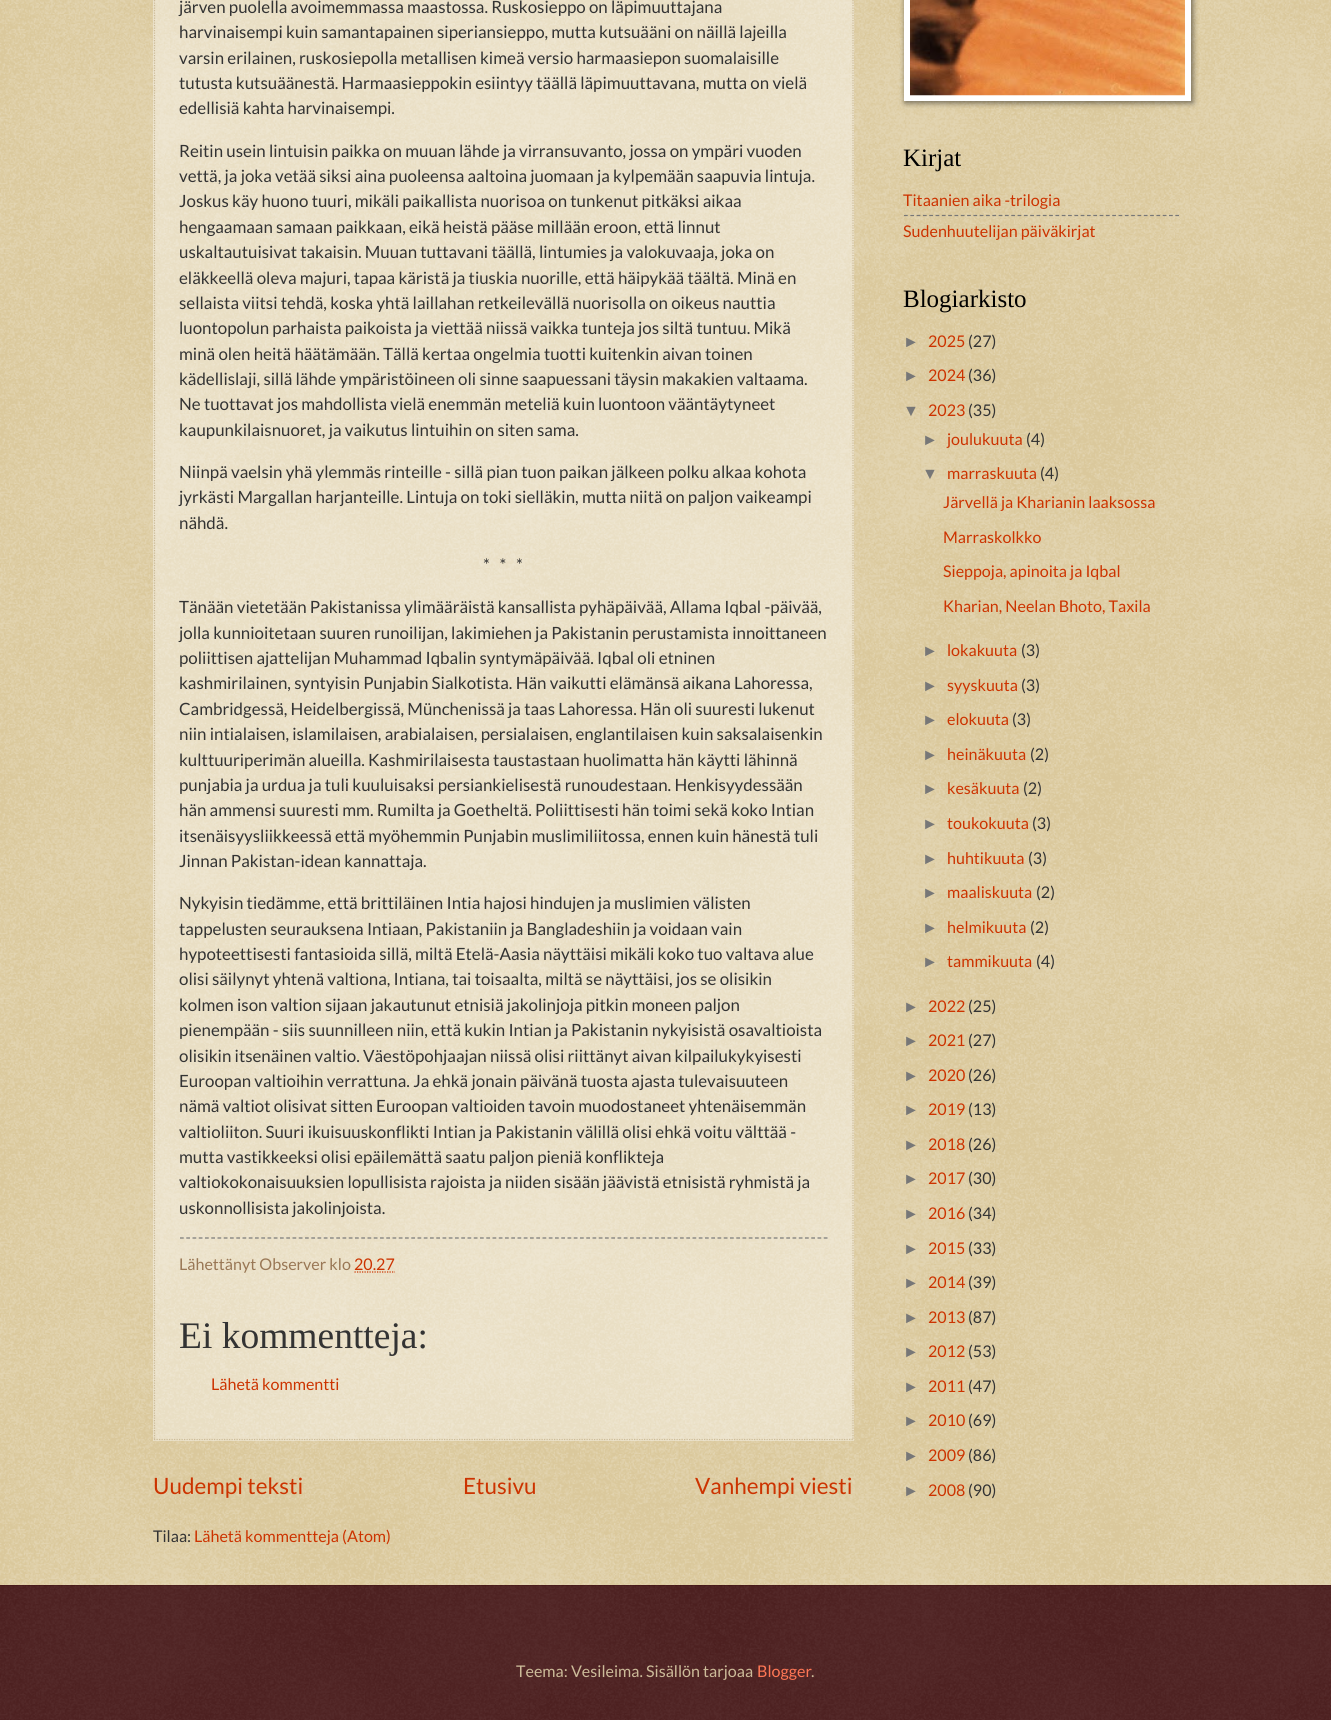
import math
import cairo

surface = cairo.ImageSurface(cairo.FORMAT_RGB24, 1331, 1720)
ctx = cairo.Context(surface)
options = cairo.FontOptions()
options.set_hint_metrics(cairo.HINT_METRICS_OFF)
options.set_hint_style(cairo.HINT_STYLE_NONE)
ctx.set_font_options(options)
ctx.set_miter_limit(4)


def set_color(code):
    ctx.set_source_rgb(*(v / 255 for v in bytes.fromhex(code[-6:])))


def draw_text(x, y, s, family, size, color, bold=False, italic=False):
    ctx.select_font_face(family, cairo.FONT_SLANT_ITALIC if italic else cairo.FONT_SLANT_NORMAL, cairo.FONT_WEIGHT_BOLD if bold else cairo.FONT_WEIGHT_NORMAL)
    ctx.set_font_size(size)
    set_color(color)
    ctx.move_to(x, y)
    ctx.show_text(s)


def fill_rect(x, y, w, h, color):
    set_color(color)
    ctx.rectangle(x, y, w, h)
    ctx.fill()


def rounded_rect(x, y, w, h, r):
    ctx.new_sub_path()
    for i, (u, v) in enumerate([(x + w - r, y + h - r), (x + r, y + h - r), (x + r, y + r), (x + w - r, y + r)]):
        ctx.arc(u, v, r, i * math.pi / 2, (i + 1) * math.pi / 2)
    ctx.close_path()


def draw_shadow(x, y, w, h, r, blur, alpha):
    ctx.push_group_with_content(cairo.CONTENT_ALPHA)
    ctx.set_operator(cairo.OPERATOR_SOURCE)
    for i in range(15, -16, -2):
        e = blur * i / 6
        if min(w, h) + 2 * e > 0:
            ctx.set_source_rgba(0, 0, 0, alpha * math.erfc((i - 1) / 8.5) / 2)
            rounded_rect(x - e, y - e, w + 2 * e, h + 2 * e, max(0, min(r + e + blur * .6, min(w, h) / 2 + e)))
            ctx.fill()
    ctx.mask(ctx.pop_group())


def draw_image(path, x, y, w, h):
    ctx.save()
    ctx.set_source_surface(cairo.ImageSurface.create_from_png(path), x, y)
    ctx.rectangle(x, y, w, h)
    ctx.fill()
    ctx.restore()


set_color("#c0a154")
ctx.paint()
draw_image("assets/img1.png", 0, 0, 1331, 1585)
ctx.set_source_rgba(1, 1, 1, 0.4)
ctx.rectangle(153, 0, 701, 1441)
ctx.fill()
ctx.new_path()
ctx.move_to(853, -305)
ctx.line_to(853, 1440)
set_color("#ccbb99")
ctx.set_line_width(1.2)
ctx.set_dash([1.25, 1.25])
ctx.stroke()
ctx.new_path()
ctx.move_to(154, 1439.5)
ctx.line_to(854, 1439.5)
ctx.stroke()
ctx.new_path()
ctx.move_to(154.5, -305)
ctx.line_to(154.5, 1440)
ctx.stroke()
draw_text(179, 13, "järven puolella avoimemmassa maastossa. Ruskosieppo on läpimuuttajana", "Lato", 16.9, "#333333")
draw_text(179, 38, "harvinaisempi kuin samantapainen siperiansieppo, mutta kutsuääni on näillä lajeilla", "Lato", 16.9, "#333333")
draw_text(179, 64, "varsin erilainen, ruskosiepolla metallisen kimeä versio harmaasiepon suomalaisille", "Lato", 16.9, "#333333")
draw_text(179, 89, "tutusta kutsuäänestä. Harmaasieppokin esiintyy täällä läpimuuttavana, mutta on vielä", "Lato", 16.9, "#333333")
draw_text(179, 114, "edellisiä kahta harvinaisempi.", "Lato", 16.9, "#333333")
draw_text(179, 157, "Reitin usein lintuisin paikka on muuan lähde ja virransuvanto, jossa on ympäri vuoden", "Lato", 16.9, "#333333")
draw_text(179, 182, "vettä, ja joka vetää siksi aina puoleensa aaltoina juomaan ja kylpemään saapuvia lintuja.", "Lato", 16.9, "#333333")
draw_text(179, 207, "Joskus käy huono tuuri, mikäli paikallista nuorisoa on tunkenut pitkäksi aikaa", "Lato", 16.9, "#333333")
draw_text(179, 233, "hengaamaan samaan paikkaan, eikä heistä pääse millään eroon, että linnut", "Lato", 16.9, "#333333")
draw_text(179, 258, "uskaltautuisivat takaisin. Muuan tuttavani täällä, lintumies ja valokuvaaja, joka on", "Lato", 16.9, "#333333")
draw_text(179, 284, "eläkkeellä oleva majuri, tapaa käristä ja tiuskia nuorille, että häipykää täältä. Minä en", "Lato", 16.9, "#333333")
draw_text(179, 309, "sellaista viitsi tehdä, koska yhtä laillahan retkeilevällä nuorisolla on oikeus nauttia", "Lato", 16.9, "#333333")
draw_text(179, 334, "luontopolun parhaista paikoista ja viettää niissä vaikka tunteja jos siltä tuntuu. Mikä", "Lato", 16.9, "#333333")
draw_text(179, 360, "minä olen heitä häätämään. Tällä kertaa ongelmia tuotti kuitenkin aivan toinen", "Lato", 16.9, "#333333")
draw_text(179, 385, "kädellislaji, sillä lähde ympäristöineen oli sinne saapuessani täysin makakien valtaama.", "Lato", 16.9, "#333333")
draw_text(179, 410, "Ne tuottavat jos mahdollista vielä enemmän meteliä kuin luontoon vääntäytyneet", "Lato", 16.9, "#333333")
draw_text(179, 436, "kaupunkilaisnuoret, ja vaikutus lintuihin on siten sama.", "Lato", 16.9, "#333333")
draw_text(179, 478, "Niinpä vaelsin yhä ylemmäs rinteille - sillä pian tuon paikan jälkeen polku alkaa kohota", "Lato", 16.9, "#333333")
draw_text(179, 503, "jyrkästi Margallan harjanteille. Lintuja on toki sielläkin, mutta niitä on paljon vaikeampi", "Lato", 16.9, "#333333")
draw_text(179, 529, "nähdä.", "Lato", 16.9, "#333333")
draw_text(483, 571, "*   *   *", "Lato", 16.9, "#333333")
draw_text(179, 613, "Tänään vietetään Pakistanissa ylimääräistä kansallista pyhäpäivää, Allama Iqbal -päivää,", "Lato", 16.9, "#333333")
draw_text(179, 639, "jolla kunnioitetaan suuren runoilijan, lakimiehen ja Pakistanin perustamista innoittaneen", "Lato", 16.9, "#333333")
draw_text(179, 664, "poliittisen ajattelijan Muhammad Iqbalin syntymäpäivää. Iqbal oli etninen", "Lato", 16.9, "#333333")
draw_text(179, 689, "kashmirilainen, syntyisin Punjabin Sialkotista. Hän vaikutti elämänsä aikana Lahoressa,", "Lato", 16.9, "#333333")
draw_text(179, 715, "Cambridgessä, Heidelbergissä, Münchenissä ja taas Lahoressa. Hän oli suuresti lukenut", "Lato", 16.9, "#333333")
draw_text(179, 740, "niin intialaisen, islamilaisen, arabialaisen, persialaisen, englantilaisen kuin saksalaisenkin", "Lato", 16.9, "#333333")
draw_text(179, 766, "kulttuuriperimän alueilla. Kashmirilaisesta taustastaan huolimatta hän käytti lähinnä", "Lato", 16.9, "#333333")
draw_text(179, 791, "punjabia ja urdua ja tuli kuuluisaksi persiankielisestä runoudestaan. Henkisyydessään", "Lato", 16.9, "#333333")
draw_text(179, 816, "hän ammensi suuresti mm. Rumilta ja Goetheltä. Poliittisesti hän toimi sekä koko Intian", "Lato", 16.9, "#333333")
draw_text(179, 842, "itsenäisyysliikkeessä että myöhemmin Punjabin muslimiliitossa, ennen kuin hänestä tuli", "Lato", 16.9, "#333333")
draw_text(179, 867, "Jinnan Pakistan-idean kannattaja.", "Lato", 16.9, "#333333")
draw_text(179, 909, "Nykyisin tiedämme, että brittiläinen Intia hajosi hindujen ja muslimien välisten", "Lato", 16.9, "#333333")
draw_text(179, 935, "tappelusten seurauksena Intiaan, Pakistaniin ja Bangladeshiin ja voidaan vain", "Lato", 16.9, "#333333")
draw_text(179, 960, "hypoteettisesti fantasioida sillä, miltä Etelä-Aasia näyttäisi mikäli koko tuo valtava alue", "Lato", 16.9, "#333333")
draw_text(179, 985, "olisi säilynyt yhtenä valtiona, Intiana, tai toisaalta, miltä se näyttäisi, jos se olisikin", "Lato", 16.9, "#333333")
draw_text(179, 1011, "kolmen ison valtion sijaan jakautunut etnisiä jakolinjoja pitkin moneen paljon", "Lato", 16.9, "#333333")
draw_text(179, 1036, "pienempään - siis suunnilleen niin, että kukin Intian ja Pakistanin nykyisistä osavaltioista", "Lato", 16.9, "#333333")
draw_text(179, 1062, "olisikin itsenäinen valtio. Väestöpohjaajan niissä olisi riittänyt aivan kilpailukykyisesti", "Lato", 16.9, "#333333")
draw_text(179, 1087, "Euroopan valtioihin verrattuna. Ja ehkä jonain päivänä tuosta ajasta tulevaisuuteen", "Lato", 16.9, "#333333")
draw_text(179, 1112, "nämä valtiot olisivat sitten Euroopan valtioiden tavoin muodostaneet yhtenäisemmän", "Lato", 16.9, "#333333")
draw_text(179, 1138, "valtioliiton. Suuri ikuisuuskonflikti Intian ja Pakistanin välillä olisi ehkä voitu välttää -", "Lato", 16.9, "#333333")
draw_text(179, 1163, "mutta vastikkeeksi olisi epäilemättä saatu paljon pieniä konflikteja", "Lato", 16.9, "#333333")
draw_text(179, 1188, "valtiokokonaisuuksien lopullisista rajoista ja niiden sisään jäävistä etnisistä ryhmistä ja", "Lato", 16.9, "#333333")
draw_text(179, 1214, "uskonnollisista jakolinjoista.", "Lato", 16.9, "#333333")
ctx.new_path()
ctx.move_to(180, 1238)
ctx.line_to(827.5, 1238)
set_color("#777777")
ctx.set_dash([3.75, 2.5])
ctx.stroke()
draw_text(179, 1270, "Lähettänyt Observer klo", "Lato", 16.1, "#997755")
draw_text(354, 1270, "20.27", "Lato", 16.1, "#cc3300")
ctx.new_path()
ctx.move_to(354.5, 1272)
ctx.line_to(395, 1272)
ctx.set_dash([1.25, 1.25])
ctx.stroke()
draw_text(179, 1348, "Ei kommentteja:", "Liberation Serif", 37.5, "#333333")
draw_text(211, 1390, "Lähetä kommentti", "Lato", 16.1, "#cc3300")
draw_text(153, 1494, "Uudempi teksti", "Lato", 22.5, "#cc3300")
draw_text(463, 1494, "Etusivu", "Lato", 22.5, "#cc3300")
draw_text(695, 1494, "Vanhempi viesti", "Lato", 22.5, "#cc3300")
draw_text(153, 1542, "Tilaa:", "Lato", 16.1, "#333333")
draw_text(194, 1542, "Lähetä kommentteja (Atom)", "Lato", 16.1, "#cc3300")
set_color("#000000")
draw_shadow(905, -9, 288, 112, 0, 3, 0.5)
fill_rect(904, 0, 287, 101, "#ffffff")
draw_image("assets/img2.png", 910, 0, 275, 96)
draw_text(903, 166, "Kirjat", "Liberation Serif", 25, "#000000")
draw_text(903, 206, "Titaanien aika -trilogia", "Lato", 16.1, "#cc3300")
ctx.new_path()
ctx.move_to(904, 215.5)
ctx.line_to(1179, 215.5)
set_color("#777777")
ctx.set_dash([3.75, 2.56])
ctx.stroke()
draw_text(903, 237, "Sudenhuutelijan päiväkirjat", "Lato", 16.1, "#cc3300")
draw_text(903, 307, "Blogiarkisto", "Liberation Serif", 25, "#000000")
draw_text(903, 347, "►", "Liberation Sans", 16.1, "#777777")
draw_text(928, 347, "2025", "Lato", 16.1, "#cc3300")
draw_text(968, 347, "(27)", "Lato", 16.1, "#333333")
draw_text(903, 381, "►", "Liberation Sans", 16.1, "#777777")
draw_text(928, 381, "2024", "Lato", 16.1, "#cc3300")
draw_text(968, 381, "(36)", "Lato", 16.1, "#333333")
draw_text(903, 416, "▼", "Liberation Sans", 16.1, "#777777")
draw_text(928, 416, "2023", "Lato", 16.1, "#cc3300")
draw_text(968, 416, "(35)", "Lato", 16.1, "#333333")
draw_text(922, 445, "►", "Liberation Sans", 16.1, "#777777")
draw_text(947, 445, "joulukuuta", "Lato", 16.1, "#cc3300")
draw_text(1026, 445, "(4)", "Lato", 16.1, "#333333")
draw_text(922, 479, "▼", "Liberation Sans", 16.1, "#777777")
draw_text(947, 479, "marraskuuta", "Lato", 16.1, "#cc3300")
draw_text(1040, 479, "(4)", "Lato", 16.1, "#333333")
draw_text(943, 508, "Järvellä ja Kharianin laaksossa", "Lato", 16.1, "#cc3300")
draw_text(943, 543, "Marraskolkko", "Lato", 16.1, "#cc3300")
draw_text(943, 577, "Sieppoja, apinoita ja Iqbal", "Lato", 16.1, "#cc3300")
draw_text(943, 612, "Kharian, Neelan Bhoto, Taxila", "Lato", 16.1, "#cc3300")
draw_text(922, 656, "►", "Liberation Sans", 16.1, "#777777")
draw_text(947, 656, "lokakuuta", "Lato", 16.1, "#cc3300")
draw_text(1021, 656, "(3)", "Lato", 16.1, "#333333")
draw_text(922, 691, "►", "Liberation Sans", 16.1, "#777777")
draw_text(947, 691, "syyskuuta", "Lato", 16.1, "#cc3300")
draw_text(1021, 691, "(3)", "Lato", 16.1, "#333333")
draw_text(922, 725, "►", "Liberation Sans", 16.1, "#777777")
draw_text(947, 725, "elokuuta", "Lato", 16.1, "#cc3300")
draw_text(1012, 725, "(3)", "Lato", 16.1, "#333333")
draw_text(922, 760, "►", "Liberation Sans", 16.1, "#777777")
draw_text(947, 760, "heinäkuuta", "Lato", 16.1, "#cc3300")
draw_text(1030, 760, "(2)", "Lato", 16.1, "#333333")
draw_text(922, 794, "►", "Liberation Sans", 16.1, "#777777")
draw_text(947, 794, "kesäkuuta", "Lato", 16.1, "#cc3300")
draw_text(1023, 794, "(2)", "Lato", 16.1, "#333333")
draw_text(922, 829, "►", "Liberation Sans", 16.1, "#777777")
draw_text(947, 829, "toukokuuta", "Lato", 16.1, "#cc3300")
draw_text(1032, 829, "(3)", "Lato", 16.1, "#333333")
draw_text(922, 864, "►", "Liberation Sans", 16.1, "#777777")
draw_text(947, 864, "huhtikuuta", "Lato", 16.1, "#cc3300")
draw_text(1028, 864, "(3)", "Lato", 16.1, "#333333")
draw_text(922, 898, "►", "Liberation Sans", 16.1, "#777777")
draw_text(947, 898, "maaliskuuta", "Lato", 16.1, "#cc3300")
draw_text(1036, 898, "(2)", "Lato", 16.1, "#333333")
draw_text(922, 933, "►", "Liberation Sans", 16.1, "#777777")
draw_text(947, 933, "helmikuuta", "Lato", 16.1, "#cc3300")
draw_text(1030, 933, "(2)", "Lato", 16.1, "#333333")
draw_text(922, 967, "►", "Liberation Sans", 16.1, "#777777")
draw_text(947, 967, "tammikuuta", "Lato", 16.1, "#cc3300")
draw_text(1036, 967, "(4)", "Lato", 16.1, "#333333")
draw_text(903, 1012, "►", "Liberation Sans", 16.1, "#777777")
draw_text(928, 1012, "2022", "Lato", 16.1, "#cc3300")
draw_text(968, 1012, "(25)", "Lato", 16.1, "#333333")
draw_text(903, 1046, "►", "Liberation Sans", 16.1, "#777777")
draw_text(928, 1046, "2021", "Lato", 16.1, "#cc3300")
draw_text(968, 1046, "(27)", "Lato", 16.1, "#333333")
draw_text(903, 1081, "►", "Liberation Sans", 16.1, "#777777")
draw_text(928, 1081, "2020", "Lato", 16.1, "#cc3300")
draw_text(968, 1081, "(26)", "Lato", 16.1, "#333333")
draw_text(903, 1115, "►", "Liberation Sans", 16.1, "#777777")
draw_text(928, 1115, "2019", "Lato", 16.1, "#cc3300")
draw_text(968, 1115, "(13)", "Lato", 16.1, "#333333")
draw_text(903, 1150, "►", "Liberation Sans", 16.1, "#777777")
draw_text(928, 1150, "2018", "Lato", 16.1, "#cc3300")
draw_text(968, 1150, "(26)", "Lato", 16.1, "#333333")
draw_text(903, 1184, "►", "Liberation Sans", 16.1, "#777777")
draw_text(928, 1184, "2017", "Lato", 16.1, "#cc3300")
draw_text(968, 1184, "(30)", "Lato", 16.1, "#333333")
draw_text(903, 1219, "►", "Liberation Sans", 16.1, "#777777")
draw_text(928, 1219, "2016", "Lato", 16.1, "#cc3300")
draw_text(968, 1219, "(34)", "Lato", 16.1, "#333333")
draw_text(903, 1254, "►", "Liberation Sans", 16.1, "#777777")
draw_text(928, 1254, "2015", "Lato", 16.1, "#cc3300")
draw_text(968, 1254, "(33)", "Lato", 16.1, "#333333")
draw_text(903, 1288, "►", "Liberation Sans", 16.1, "#777777")
draw_text(928, 1288, "2014", "Lato", 16.1, "#cc3300")
draw_text(968, 1288, "(39)", "Lato", 16.1, "#333333")
draw_text(903, 1323, "►", "Liberation Sans", 16.1, "#777777")
draw_text(928, 1323, "2013", "Lato", 16.1, "#cc3300")
draw_text(968, 1323, "(87)", "Lato", 16.1, "#333333")
draw_text(903, 1357, "►", "Liberation Sans", 16.1, "#777777")
draw_text(928, 1357, "2012", "Lato", 16.1, "#cc3300")
draw_text(968, 1357, "(53)", "Lato", 16.1, "#333333")
draw_text(903, 1392, "►", "Liberation Sans", 16.1, "#777777")
draw_text(928, 1392, "2011", "Lato", 16.1, "#cc3300")
draw_text(968, 1392, "(47)", "Lato", 16.1, "#333333")
draw_text(903, 1426, "►", "Liberation Sans", 16.1, "#777777")
draw_text(928, 1426, "2010", "Lato", 16.1, "#cc3300")
draw_text(968, 1426, "(69)", "Lato", 16.1, "#333333")
draw_text(903, 1461, "►", "Liberation Sans", 16.1, "#777777")
draw_text(928, 1461, "2009", "Lato", 16.1, "#cc3300")
draw_text(968, 1461, "(86)", "Lato", 16.1, "#333333")
draw_text(903, 1496, "►", "Liberation Sans", 16.1, "#777777")
draw_text(928, 1496, "2008", "Lato", 16.1, "#cc3300")
draw_text(968, 1496, "(90)", "Lato", 16.1, "#333333")
fill_rect(0, 1585, 1331, 135, "#330000")
draw_image("assets/img3.png", 0, 1585, 1331, 135)
draw_text(516, 1677, "Teema: Vesileima. Sisällön tarjoaa", "Lato", 16.1, "#ccbb99")
draw_text(757, 1677, "Blogger", "Lato", 16.1, "#ff7755")
draw_text(811, 1677, ".", "Lato", 16.1, "#ccbb99")
surface.write_to_png("output.png")
